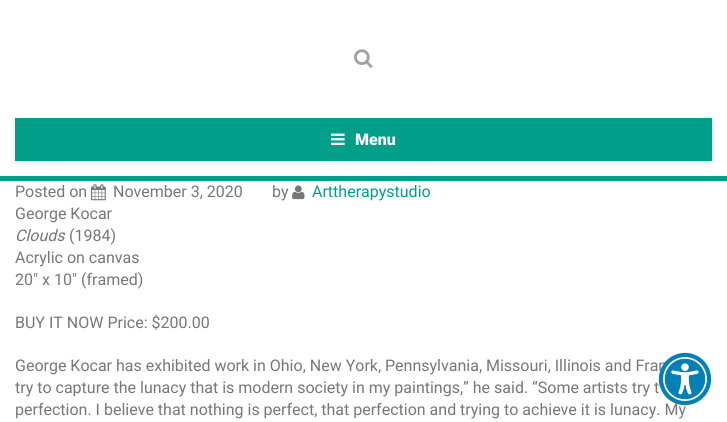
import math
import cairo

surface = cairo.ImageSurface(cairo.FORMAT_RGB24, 727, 422)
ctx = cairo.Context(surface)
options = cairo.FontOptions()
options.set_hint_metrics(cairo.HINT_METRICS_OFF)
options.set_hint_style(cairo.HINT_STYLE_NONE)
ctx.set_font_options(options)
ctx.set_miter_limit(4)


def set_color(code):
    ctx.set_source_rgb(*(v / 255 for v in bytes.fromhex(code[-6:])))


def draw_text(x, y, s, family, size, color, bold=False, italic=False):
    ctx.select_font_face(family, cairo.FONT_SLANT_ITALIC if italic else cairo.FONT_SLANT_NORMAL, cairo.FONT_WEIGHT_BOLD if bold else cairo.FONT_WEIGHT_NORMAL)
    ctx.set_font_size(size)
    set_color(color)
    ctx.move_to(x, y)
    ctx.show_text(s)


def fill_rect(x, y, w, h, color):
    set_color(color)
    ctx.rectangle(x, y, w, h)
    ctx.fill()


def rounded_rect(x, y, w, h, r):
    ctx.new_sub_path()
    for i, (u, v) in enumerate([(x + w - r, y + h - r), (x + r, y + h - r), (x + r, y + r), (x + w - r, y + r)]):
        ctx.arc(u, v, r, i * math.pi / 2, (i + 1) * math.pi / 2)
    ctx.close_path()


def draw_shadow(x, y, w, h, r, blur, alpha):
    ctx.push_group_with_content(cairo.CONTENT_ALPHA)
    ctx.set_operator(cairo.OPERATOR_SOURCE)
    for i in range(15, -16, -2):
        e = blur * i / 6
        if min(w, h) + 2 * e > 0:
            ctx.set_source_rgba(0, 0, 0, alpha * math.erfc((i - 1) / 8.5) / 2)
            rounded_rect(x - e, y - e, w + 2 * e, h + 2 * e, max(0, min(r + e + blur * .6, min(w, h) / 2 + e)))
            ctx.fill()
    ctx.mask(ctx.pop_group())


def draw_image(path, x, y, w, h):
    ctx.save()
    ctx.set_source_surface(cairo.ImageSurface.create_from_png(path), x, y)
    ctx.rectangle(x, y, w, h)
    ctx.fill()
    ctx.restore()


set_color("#ffffff")
ctx.paint()
fill_rect(0, 176, 727, 5, "#019e89")
draw_image("assets/img1.png", 354, 49, 19, 19)
set_color("#000000")
draw_shadow(15, 120, 697, 43, 0, 2, 0.1)
fill_rect(15, 118, 697, 43, "#019e89")
draw_image("assets/img2.png", 331, 133, 14, 12)
draw_text(355, 145, "Menu", "Roboto Black", 16, "#ffffff")
draw_text(15, 197, "Posted on", "Roboto", 16, "#777777")
draw_image("assets/img3.png", 91, 184, 15, 17)
draw_text(113, 197, "November 3, 2020", "Roboto", 16, "#777777")
draw_text(272, 197, "by", "Roboto", 16, "#777777")
draw_image("assets/img4.png", 292, 185, 13, 15)
draw_text(312, 197, "Arttherapystudio", "Roboto", 16, "#019e89")
draw_text(15, 219, "George Kocar", "Roboto", 16, "#777777")
draw_text(15, 241, "Clouds", "Roboto", 16, "#777777", italic=True)
draw_text(69, 241, "(1984)", "Roboto", 16, "#777777")
draw_text(15, 263, "Acrylic on canvas", "Roboto", 16, "#777777")
draw_text(15, 285, "20″ x 10″ (framed)", "Roboto", 16, "#777777")
draw_text(15, 328, "BUY IT NOW Price: $200.00", "Roboto", 16, "#777777")
draw_text(15, 371, "George Kocar has exhibited work in Ohio, New York, Pennsylvania, Missouri, Illinois and Fran", "Roboto", 16, "#777777")
draw_text(15, 393, "try to capture the lunacy that is modern society in my paintings,” he said. “Some artists try t", "Roboto", 16, "#777777")
draw_text(15, 415, "perfection. I believe that nothing is perfect, that perfection and trying to achieve it is lunacy. My", "Roboto", 16, "#777777")
set_color("#ffffff")
ctx.new_path()
ctx.arc(685, 379, 23, 0, 2 * math.pi)
ctx.fill()
draw_image("assets/img5.png", 658, 352, 54, 54)
surface.write_to_png("output.png")
